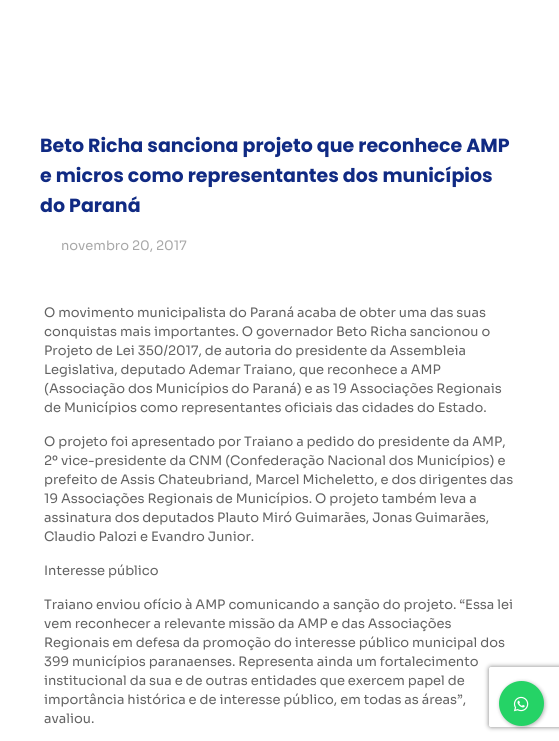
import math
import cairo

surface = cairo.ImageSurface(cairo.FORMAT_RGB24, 559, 741)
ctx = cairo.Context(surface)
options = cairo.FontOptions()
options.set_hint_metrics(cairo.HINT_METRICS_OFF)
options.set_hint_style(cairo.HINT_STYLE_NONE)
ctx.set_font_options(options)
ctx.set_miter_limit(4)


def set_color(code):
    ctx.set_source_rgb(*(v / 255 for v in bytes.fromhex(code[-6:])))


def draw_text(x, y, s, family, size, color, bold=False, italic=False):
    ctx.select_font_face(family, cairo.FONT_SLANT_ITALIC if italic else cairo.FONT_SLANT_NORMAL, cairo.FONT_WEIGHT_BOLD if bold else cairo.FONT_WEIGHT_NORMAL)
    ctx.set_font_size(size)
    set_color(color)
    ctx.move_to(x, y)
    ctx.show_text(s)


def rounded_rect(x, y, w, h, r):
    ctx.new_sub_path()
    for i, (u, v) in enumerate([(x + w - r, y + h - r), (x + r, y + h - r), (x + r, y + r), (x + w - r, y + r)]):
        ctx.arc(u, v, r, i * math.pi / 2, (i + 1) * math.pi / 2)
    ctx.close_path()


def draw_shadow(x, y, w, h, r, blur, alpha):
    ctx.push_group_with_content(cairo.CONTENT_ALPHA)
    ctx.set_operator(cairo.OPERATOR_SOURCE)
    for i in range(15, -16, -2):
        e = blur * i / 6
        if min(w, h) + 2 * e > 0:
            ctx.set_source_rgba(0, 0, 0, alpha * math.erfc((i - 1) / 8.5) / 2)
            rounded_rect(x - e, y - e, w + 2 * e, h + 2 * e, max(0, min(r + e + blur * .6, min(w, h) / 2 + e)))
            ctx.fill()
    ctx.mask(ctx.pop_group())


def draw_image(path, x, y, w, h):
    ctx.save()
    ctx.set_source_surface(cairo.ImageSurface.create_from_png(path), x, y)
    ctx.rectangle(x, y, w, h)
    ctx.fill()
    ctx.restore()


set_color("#ffffff")
ctx.paint()
draw_text(40, 152, "Beto Richa sanciona projeto que reconhece AMP", "Poppins", 19, "#102a83", bold=True)
draw_text(40, 182, "e micros como representantes dos municípios", "Poppins", 19, "#102a83", bold=True)
draw_text(40, 212, "do Paraná", "Poppins", 19, "#102a83", bold=True)
draw_text(61, 250, "novembro 20, 2017", "Sora", 13, "#a8a8a8")
draw_text(44, 317, "O movimento municipalista do Paraná acaba de obter uma das suas", "Sora", 13, "#626262")
draw_text(44, 336, "conquistas mais importantes. O governador Beto Richa sancionou o", "Sora", 13, "#626262")
draw_text(44, 355, "Projeto de Lei 350/2017, de autoria do presidente da Assembleia", "Sora", 13, "#626262")
draw_text(44, 374, "Legislativa, deputado Ademar Traiano, que reconhece a AMP", "Sora", 13, "#626262")
draw_text(44, 393, "(Associação dos Municípios do Paraná) e as 19 Associações Regionais", "Sora", 13, "#626262")
draw_text(44, 412, "de Municípios como representantes oficiais das cidades do Estado.", "Sora", 13, "#626262")
draw_text(44, 446, "O projeto foi apresentado por Traiano a pedido do presidente da AMP,", "Sora", 13, "#626262")
draw_text(44, 465, "2º vice-presidente da CNM (Confederação Nacional dos Municípios) e", "Sora", 13, "#626262")
draw_text(44, 484, "prefeito de Assis Chateubriand, Marcel Micheletto, e dos dirigentes das", "Sora", 13, "#626262")
draw_text(44, 503, "19 Associações Regionais de Municípios. O projeto também leva a", "Sora", 13, "#626262")
draw_text(44, 522, "assinatura dos deputados Plauto Miró Guimarães, Jonas Guimarães,", "Sora", 13, "#626262")
draw_text(44, 541, "Claudio Palozi e Evandro Junior.", "Sora", 13, "#626262")
draw_text(44, 575, "Interesse público", "Sora", 13, "#626262")
draw_text(44, 609, "Traiano enviou ofício à AMP comunicando a sanção do projeto. “Essa lei", "Sora", 13, "#626262")
draw_text(44, 628, "vem reconhecer a relevante missão da AMP e das Associações", "Sora", 13, "#626262")
draw_text(44, 647, "Regionais em defesa da promoção do interesse público municipal dos", "Sora", 13, "#626262")
draw_text(44, 666, "399 municípios paranaenses. Representa ainda um fortalecimento", "Sora", 13, "#626262")
draw_text(44, 685, "institucional da sua e de outras entidades que exercem papel de", "Sora", 13, "#626262")
draw_text(44, 704, "importância histórica e de interesse público, em todas as áreas”,", "Sora", 13, "#626262")
draw_text(44, 723, "avaliou.", "Sora", 13, "#626262")
ctx.save()
ctx.set_fill_rule(cairo.FILL_RULE_EVEN_ODD)
ctx.new_path()
ctx.move_to(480, 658)
ctx.line_to(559, 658)
ctx.line_to(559, 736)
ctx.line_to(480, 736)
ctx.close_path()
ctx.move_to(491, 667)
ctx.line_to(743, 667)
ctx.curve_to(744, 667, 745, 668, 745, 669)
ctx.line_to(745, 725)
ctx.curve_to(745, 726, 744, 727, 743, 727)
ctx.line_to(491, 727)
ctx.curve_to(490, 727, 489, 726, 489, 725)
ctx.line_to(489, 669)
ctx.curve_to(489, 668, 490, 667, 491, 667)
ctx.close_path()
ctx.clip()
set_color("#808080")
draw_shadow(489, 667, 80, 60, 2, 2.5, 1)
ctx.restore()
set_color("#000000")
draw_shadow(500, 682, 45, 45, 22.5, 2, 0.3)
set_color("#25d366")
ctx.arc(521.5, 703.5, 22.5, 0, 2 * math.pi)
ctx.fill()
draw_image("assets/img1.png", 513, 696, 16, 16)
surface.write_to_png("output.png")
